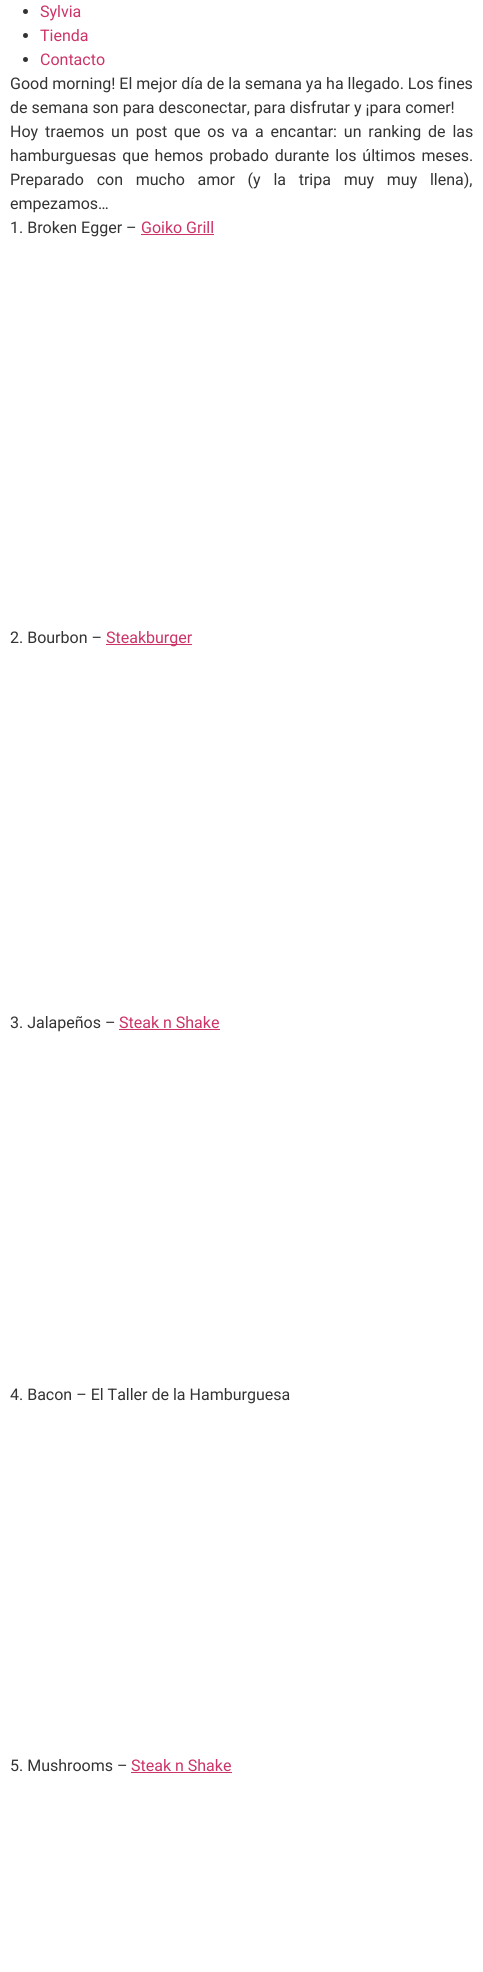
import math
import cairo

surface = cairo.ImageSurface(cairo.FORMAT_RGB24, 483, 1972)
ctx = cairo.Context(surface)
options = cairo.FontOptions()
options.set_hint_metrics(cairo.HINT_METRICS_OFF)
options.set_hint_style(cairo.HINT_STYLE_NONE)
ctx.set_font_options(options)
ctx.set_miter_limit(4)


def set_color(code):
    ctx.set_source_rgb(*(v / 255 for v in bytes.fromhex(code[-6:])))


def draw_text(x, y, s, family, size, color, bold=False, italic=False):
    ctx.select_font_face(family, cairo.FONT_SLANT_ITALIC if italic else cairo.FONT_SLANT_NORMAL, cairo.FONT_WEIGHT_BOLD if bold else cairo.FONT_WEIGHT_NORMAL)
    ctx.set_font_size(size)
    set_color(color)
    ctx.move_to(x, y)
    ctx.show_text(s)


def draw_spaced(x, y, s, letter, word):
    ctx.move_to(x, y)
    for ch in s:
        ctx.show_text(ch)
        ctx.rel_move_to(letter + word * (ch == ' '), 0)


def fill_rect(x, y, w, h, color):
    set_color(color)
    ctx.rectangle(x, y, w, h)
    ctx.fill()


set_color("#ffffff")
ctx.paint()
set_color("#333333")
ctx.arc(25.5, 11.5, 2.5, 0, 2 * math.pi)
ctx.fill()
draw_text(40, 17, "Sylvia", "Roboto", 16, "#cc3366")
set_color("#333333")
ctx.new_path()
ctx.arc(25.5, 35.5, 2.5, 0, 2 * math.pi)
ctx.fill()
draw_text(40, 41, "Tienda", "Roboto", 16, "#cc3366")
set_color("#333333")
ctx.new_path()
ctx.arc(25.5, 59.5, 2.5, 0, 2 * math.pi)
ctx.fill()
draw_text(40, 65, "Contacto", "Roboto", 16, "#cc3366")
draw_text(10, 89, "Good morning! El mejor día de la semana ya ha llegado. Los fines", "Roboto", 16, "#333333")
draw_text(10, 113, "de semana son para desconectar, para disfrutar y ¡para comer!", "Roboto", 16, "#333333")
draw_spaced(10, 137, "Hoy traemos un post que os va a encantar: un ranking de las", 0, 2.9)
draw_spaced(10, 161, "hamburguesas que hemos probado durante los últimos meses.", 0, 2)
draw_spaced(10, 185, "Preparado con mucho amor (y la tripa muy muy llena),", 0, 8.75)
draw_text(10, 209, "empezamos…", "Roboto", 16, "#333333")
draw_text(10, 233, "1. Broken Egger –", "Roboto", 16, "#333333")
draw_text(141, 233, "Goiko Grill", "Roboto", 16, "#cc3366")
fill_rect(141, 234, 73, 1, "#cc3366")
draw_text(10, 643, "2. Bourbon –", "Roboto", 16, "#333333")
fill_rect(106, 644, 86, 1, "#cc3366")
draw_text(106, 643, "Steakburger", "Roboto", 16, "#cc3366")
draw_text(10, 1028, "3. Jalapeños –", "Roboto", 16, "#333333")
draw_text(119, 1028, "Steak n Shake", "Roboto", 16, "#cc3366")
fill_rect(119, 1029, 101, 1, "#cc3366")
draw_text(10, 1400, "4. Bacon – El Taller de la Hamburguesa", "Roboto", 16, "#333333")
draw_text(10, 1771, "5. Mushrooms –", "Roboto", 16, "#333333")
draw_text(131, 1771, "Steak n Shake", "Roboto", 16, "#cc3366")
fill_rect(131, 1772, 101, 1, "#cc3366")
surface.write_to_png("output.png")
